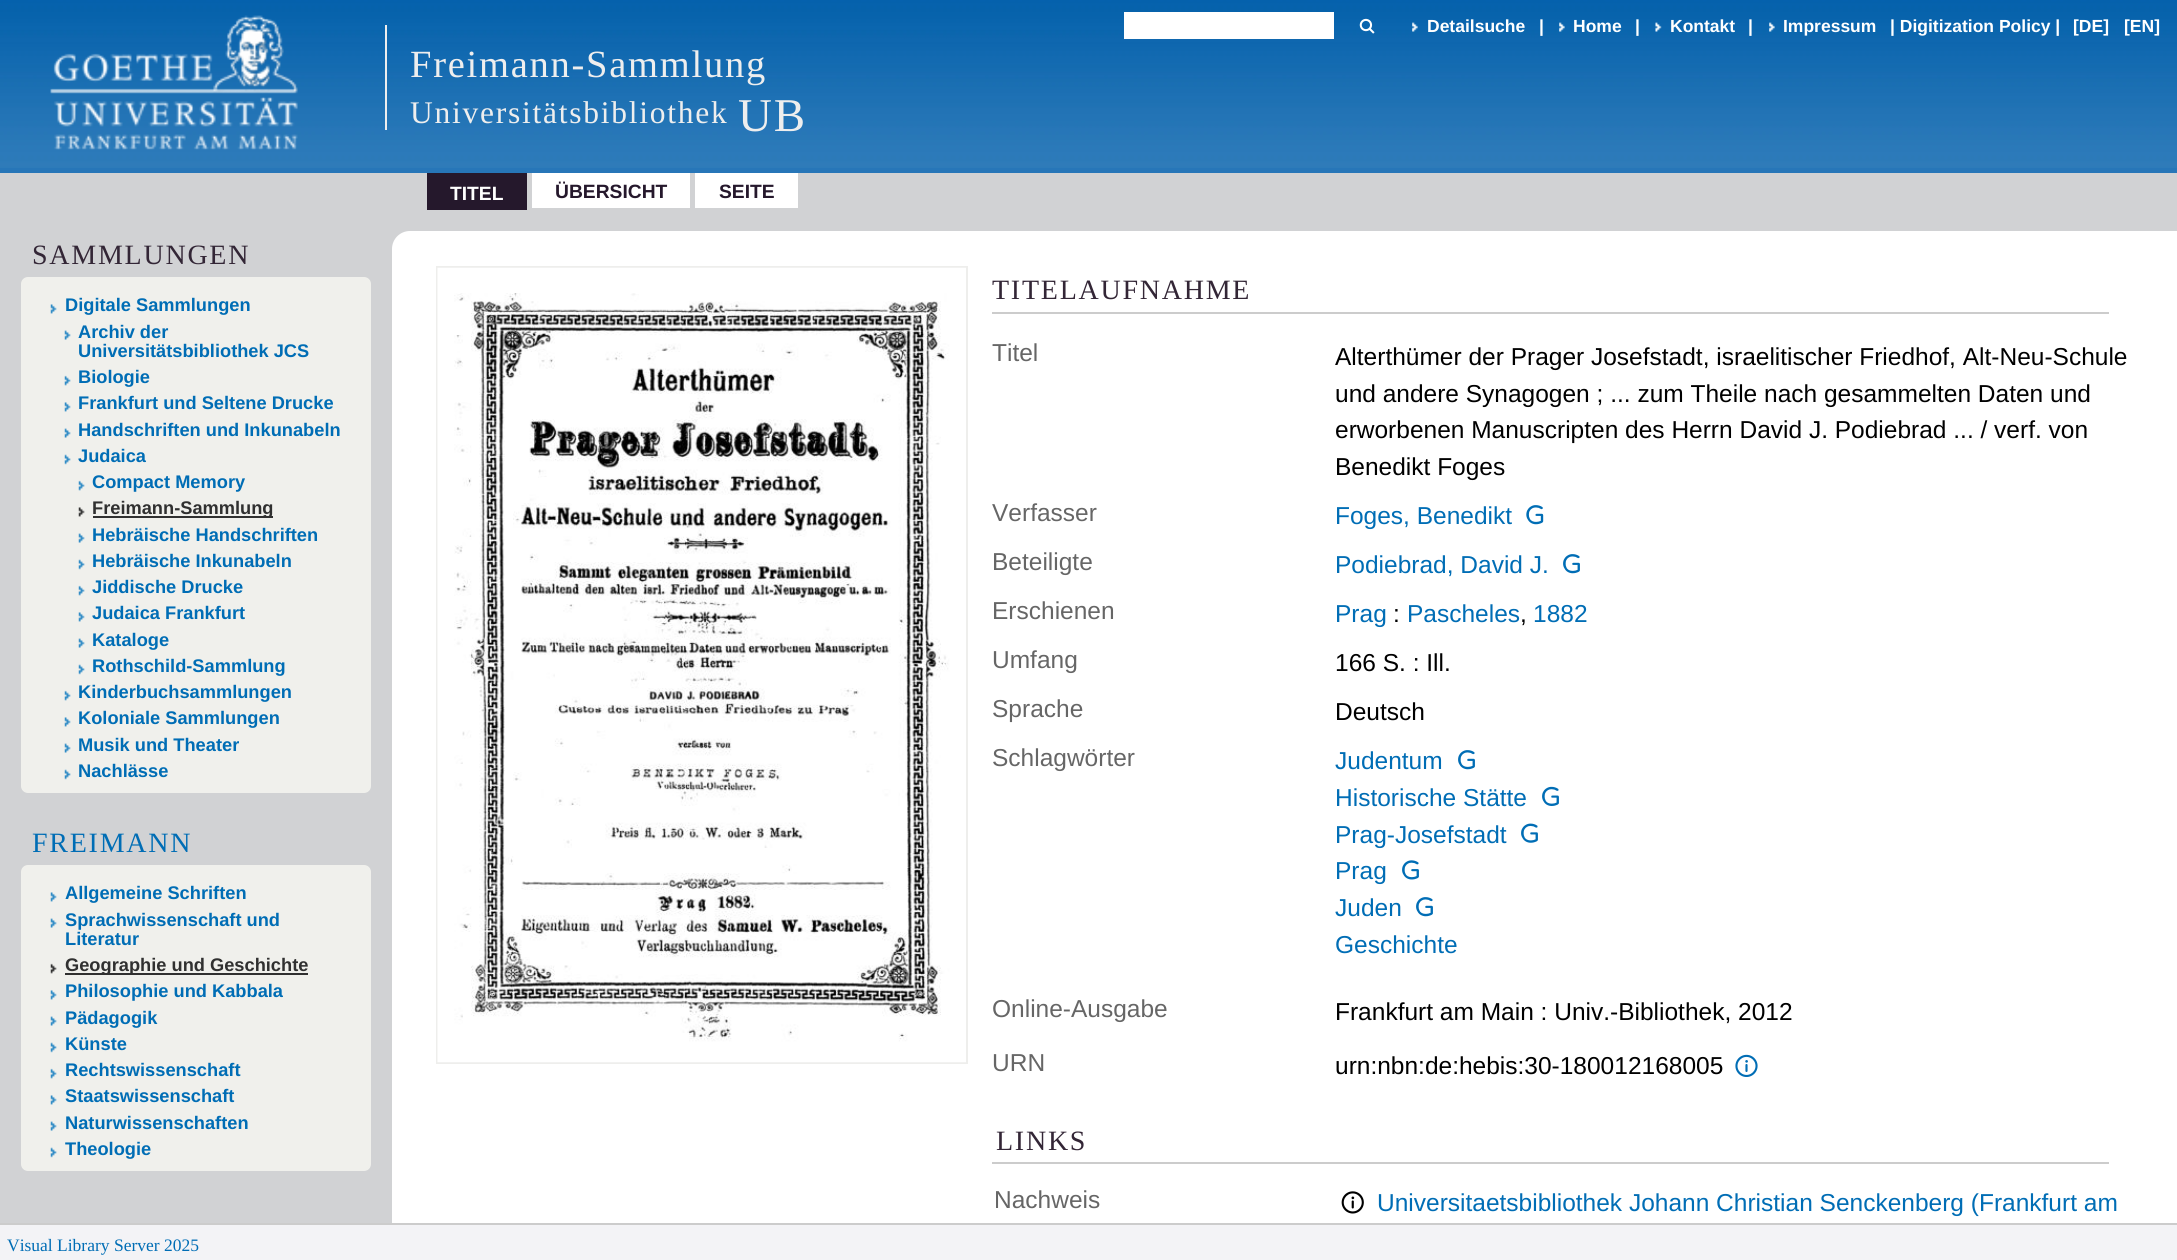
import math
import cairo

surface = cairo.ImageSurface(cairo.FORMAT_RGB24, 2177, 1260)
ctx = cairo.Context(surface)
options = cairo.FontOptions()
options.set_hint_metrics(cairo.HINT_METRICS_OFF)
options.set_hint_style(cairo.HINT_STYLE_NONE)
ctx.set_font_options(options)
ctx.set_miter_limit(4)


def set_color(code):
    ctx.set_source_rgb(*(v / 255 for v in bytes.fromhex(code[-6:])))


def draw_text(x, y, s, family, size, color, bold=False, italic=False):
    ctx.select_font_face(family, cairo.FONT_SLANT_ITALIC if italic else cairo.FONT_SLANT_NORMAL, cairo.FONT_WEIGHT_BOLD if bold else cairo.FONT_WEIGHT_NORMAL)
    ctx.set_font_size(size)
    set_color(color)
    ctx.move_to(x, y)
    ctx.show_text(s)


def draw_spaced(x, y, s, letter, word):
    ctx.move_to(x, y)
    for ch in s:
        ctx.show_text(ch)
        ctx.rel_move_to(letter + word * (ch == ' '), 0)


def fill_rect(x, y, w, h, color):
    set_color(color)
    ctx.rectangle(x, y, w, h)
    ctx.fill()


def rounded_rect(x, y, w, h, r):
    ctx.new_sub_path()
    for i, (u, v) in enumerate([(x + w - r, y + h - r), (x + r, y + h - r), (x + r, y + r), (x + w - r, y + r)]):
        ctx.arc(u, v, r, i * math.pi / 2, (i + 1) * math.pi / 2)
    ctx.close_path()


def draw_image(path, x, y, w, h):
    ctx.save()
    ctx.set_source_surface(cairo.ImageSurface.create_from_png(path), x, y)
    ctx.rectangle(x, y, w, h)
    ctx.fill()
    ctx.restore()


set_color("#2776b8")
ctx.paint()
draw_image("assets/img1.png", 0, 0, 2177, 168)
draw_image("assets/img2.png", 50, 15, 248, 135)
fill_rect(1124, 12, 210, 27, "#ffffff")
draw_image("assets/img3.png", 1359, 18, 16, 16)
draw_image("assets/img4.png", 1412, 22, 6, 10)
draw_text(1427, 32, "Detailsuche", "Liberation Sans", 17.5, "#ffffff", bold=True)
draw_text(1539, 32, "|", "Liberation Sans", 17.5, "#ffffff", bold=True)
draw_image("assets/img5.png", 1559, 22, 6, 10)
draw_text(1573, 32, "Home", "Liberation Sans", 17.5, "#ffffff", bold=True)
draw_text(1635, 32, "|", "Liberation Sans", 17.5, "#ffffff", bold=True)
draw_image("assets/img6.png", 1655, 22, 7, 10)
draw_text(1670, 32, "Kontakt", "Liberation Sans", 17.5, "#ffffff", bold=True)
draw_text(1748, 32, "|", "Liberation Sans", 17.5, "#ffffff", bold=True)
draw_image("assets/img7.png", 1769, 22, 6, 10)
draw_text(1783, 32, "Impressum", "Liberation Sans", 17.5, "#ffffff", bold=True)
draw_text(1890, 32, "| Digitization Policy |", "Liberation Sans", 17.5, "#ffffff", bold=True)
draw_text(2073, 32, "[DE]", "Liberation Sans", 17.5, "#ffffff", bold=True)
draw_text(2124, 32, "[EN]", "Liberation Sans", 17.5, "#ffffff", bold=True)
fill_rect(385, 25, 2, 105, "#eeeeee")
ctx.select_font_face("Liberation Serif")
ctx.set_font_size(38.5)
draw_spaced(410, 77, "Freimann-Sammlung", 1.75, 0)
ctx.set_font_size(31.5)
draw_spaced(410, 123, "Universitätsbibliothek", 1.75, 0)
ctx.set_font_size(47)
draw_spaced(738, 131, "UB", 1.75, 0)
fill_rect(0, 173, 2177, 58, "#d1d2d4")
fill_rect(427, 173, 100, 37, "#25182c")
draw_text(450, 200, "TITEL", "Liberation Sans", 19.25, "#ffffff", bold=True)
fill_rect(532, 173, 158, 35, "#ffffff")
draw_text(555, 198, "ÜBERSICHT", "Liberation Sans", 19.25, "#25182c", bold=True)
fill_rect(695, 173, 103, 35, "#ffffff")
draw_text(719, 198, "SEITE", "Liberation Sans", 19.25, "#25182c", bold=True)
fill_rect(0, 231, 410, 992, "#d1d2d4")
ctx.select_font_face("Liberation Serif")
ctx.set_font_size(28)
set_color("#332636")
draw_spaced(32, 264, "SAMMLUNGEN", 1.75, 0)
set_color("#f0f0ec")
rounded_rect(22, 278, 348, 514, 6)
ctx.fill_preserve()
ctx.stroke()
draw_image("assets/img8.png", 50, 304, 7, 10)
draw_text(65, 311, "Digitale Sammlungen", "Liberation Sans", 18.25, "#006db5", bold=True)
draw_image("assets/img9.png", 64, 330, 7, 10)
draw_text(78, 338, "Archiv der", "Liberation Sans", 18.25, "#006db5", bold=True)
draw_text(78, 357, "Universitätsbibliothek JCS", "Liberation Sans", 18.25, "#006db5", bold=True)
draw_image("assets/img10.png", 64, 375, 7, 11)
draw_text(78, 383, "Biologie", "Liberation Sans", 18.25, "#006db5", bold=True)
draw_image("assets/img8.png", 64, 402, 7, 10)
draw_text(78, 409, "Frankfurt und Seltene Drucke", "Liberation Sans", 18.25, "#006db5", bold=True)
draw_image("assets/img9.png", 64, 428, 7, 10)
draw_text(78, 436, "Handschriften und Inkunabeln", "Liberation Sans", 18.25, "#006db5", bold=True)
draw_image("assets/img11.png", 64, 454, 7, 11)
draw_text(78, 462, "Judaica", "Liberation Sans", 18.25, "#006db5", bold=True)
draw_image("assets/img12.png", 78, 480, 7, 11)
draw_text(92, 488, "Compact Memory", "Liberation Sans", 18.25, "#006db5", bold=True)
draw_image("assets/img13.png", 78, 507, 7, 10)
fill_rect(93, 516, 180, 2, "#303030")
draw_text(92, 514, "Freimann-Sammlung", "Liberation Sans", 18.25, "#303030", bold=True)
draw_image("assets/img14.png", 78, 533, 7, 10)
draw_text(92, 541, "Hebräische Handschriften", "Liberation Sans", 18.25, "#006db5", bold=True)
draw_image("assets/img15.png", 78, 559, 7, 11)
draw_text(92, 567, "Hebräische Inkunabeln", "Liberation Sans", 18.25, "#006db5", bold=True)
draw_image("assets/img12.png", 78, 585, 7, 11)
draw_text(92, 593, "Jiddische Drucke", "Liberation Sans", 18.25, "#006db5", bold=True)
draw_image("assets/img16.png", 78, 612, 7, 10)
draw_text(92, 619, "Judaica Frankfurt", "Liberation Sans", 18.25, "#006db5", bold=True)
draw_image("assets/img14.png", 78, 638, 7, 10)
draw_text(92, 646, "Kataloge", "Liberation Sans", 18.25, "#006db5", bold=True)
draw_image("assets/img15.png", 78, 664, 7, 11)
draw_text(92, 672, "Rothschild-Sammlung", "Liberation Sans", 18.25, "#006db5", bold=True)
draw_image("assets/img10.png", 64, 690, 7, 11)
draw_text(78, 698, "Kinderbuchsammlungen", "Liberation Sans", 18.25, "#006db5", bold=True)
draw_image("assets/img8.png", 64, 717, 7, 10)
draw_text(78, 724, "Koloniale Sammlungen", "Liberation Sans", 18.25, "#006db5", bold=True)
draw_image("assets/img9.png", 64, 743, 7, 10)
draw_text(78, 751, "Musik und Theater", "Liberation Sans", 18.25, "#006db5", bold=True)
draw_image("assets/img11.png", 64, 769, 7, 11)
draw_text(78, 777, "Nachlässe", "Liberation Sans", 18.25, "#006db5", bold=True)
ctx.select_font_face("Liberation Serif")
ctx.set_font_size(28)
draw_spaced(32, 852, "FREIMANN", 1.75, 0)
set_color("#f0f0ec")
rounded_rect(22, 866, 348, 304, 6)
ctx.fill_preserve()
ctx.stroke()
draw_image("assets/img8.png", 50, 892, 7, 10)
draw_text(65, 899, "Allgemeine Schriften", "Liberation Sans", 18.25, "#006db5", bold=True)
draw_image("assets/img9.png", 50, 918, 7, 10)
draw_text(65, 926, "Sprachwissenschaft und", "Liberation Sans", 18.25, "#006db5", bold=True)
draw_text(65, 945, "Literatur", "Liberation Sans", 18.25, "#006db5", bold=True)
draw_image("assets/img17.png", 50, 963, 7, 11)
fill_rect(65, 973, 243, 2, "#303030")
draw_text(65, 971, "Geographie und Geschichte", "Liberation Sans", 18.25, "#303030", bold=True)
draw_image("assets/img8.png", 50, 990, 7, 10)
draw_text(65, 997, "Philosophie und Kabbala", "Liberation Sans", 18.25, "#006db5", bold=True)
draw_image("assets/img9.png", 50, 1016, 7, 10)
draw_text(65, 1024, "Pädagogik", "Liberation Sans", 18.25, "#006db5", bold=True)
draw_image("assets/img11.png", 50, 1042, 7, 11)
draw_text(65, 1050, "Künste", "Liberation Sans", 18.25, "#006db5", bold=True)
draw_image("assets/img10.png", 50, 1068, 7, 11)
draw_text(65, 1076, "Rechtswissenschaft", "Liberation Sans", 18.25, "#006db5", bold=True)
draw_image("assets/img8.png", 50, 1095, 7, 10)
draw_text(65, 1102, "Staatswissenschaft", "Liberation Sans", 18.25, "#006db5", bold=True)
draw_image("assets/img9.png", 50, 1121, 7, 10)
draw_text(65, 1129, "Naturwissenschaften", "Liberation Sans", 18.25, "#006db5", bold=True)
draw_image("assets/img11.png", 50, 1147, 7, 11)
draw_text(65, 1155, "Theologie", "Liberation Sans", 18.25, "#006db5", bold=True)
set_color("#ffffff")
ctx.new_path()
ctx.move_to(410, 231)
ctx.line_to(2177, 231)
ctx.line_to(2177, 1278)
ctx.line_to(392, 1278)
ctx.line_to(392, 249)
ctx.curve_to(392, 239, 400, 231, 410, 231)
ctx.close_path()
ctx.fill()
ctx.rectangle(437, 267, 530, 796)
set_color("#eeeeec")
ctx.stroke()
draw_image("assets/img18.png", 437, 267, 529, 796)
fill_rect(992, 312, 1117, 2, "#cccccc")
ctx.select_font_face("Liberation Serif")
ctx.set_font_size(28)
set_color("#332636")
draw_spaced(992, 299, "TITELAUFNAHME", 1.75, 0)
draw_text(992, 361, "Titel", "Liberation Sans", 24.5, "#666666")
draw_text(1335, 365, "Alterthümer der Prager Josefstadt, israelitischer Friedhof, Alt-Neu-Schule", "Liberation Sans", 24.5, "#000000")
draw_text(1335, 402, "und andere Synagogen ; ... zum Theile nach gesammelten Daten und", "Liberation Sans", 24.5, "#000000")
draw_text(1335, 438, "erworbenen Manuscripten des Herrn David J. Podiebrad ... / verf. von", "Liberation Sans", 24.5, "#000000")
draw_text(1335, 475, "Benedikt Foges", "Liberation Sans", 24.5, "#000000")
draw_text(992, 521, "Verfasser", "Liberation Sans", 24.5, "#666666")
draw_text(1335, 524, "Foges, Benedikt", "Liberation Sans", 24.5, "#006db5")
draw_image("assets/img19.png", 1526, 505, 18, 20)
draw_text(992, 570, "Beteiligte", "Liberation Sans", 24.5, "#666666")
draw_text(1335, 573, "Podiebrad, David J.", "Liberation Sans", 24.5, "#006db5")
draw_image("assets/img20.png", 1563, 554, 17, 20)
draw_text(992, 619, "Erschienen", "Liberation Sans", 24.5, "#666666")
draw_text(1335, 622, "Prag", "Liberation Sans", 24.5, "#006db5")
draw_text(1393, 622, ":", "Liberation Sans", 24.5, "#000000")
draw_text(1407, 622, "Pascheles", "Liberation Sans", 24.5, "#006db5")
draw_text(1520, 622, ",", "Liberation Sans", 24.5, "#000000")
draw_text(1533, 622, "1882", "Liberation Sans", 24.5, "#006db5")
draw_text(992, 668, "Umfang", "Liberation Sans", 24.5, "#666666")
draw_text(1335, 671, "166 S. : Ill.", "Liberation Sans", 24.5, "#000000")
draw_text(992, 717, "Sprache", "Liberation Sans", 24.5, "#666666")
draw_text(1335, 720, "Deutsch", "Liberation Sans", 24.5, "#000000")
draw_text(992, 766, "Schlagwörter", "Liberation Sans", 24.5, "#666666")
draw_text(1335, 769, "Judentum", "Liberation Sans", 24.5, "#006db5")
draw_image("assets/img20.png", 1458, 750, 17, 20)
draw_text(1335, 806, "Historische Stätte", "Liberation Sans", 24.5, "#006db5")
draw_image("assets/img21.png", 1542, 786, 17, 20)
draw_text(1335, 843, "Prag-Josefstadt", "Liberation Sans", 24.5, "#006db5")
draw_image("assets/img22.png", 1521, 823, 17, 20)
draw_text(1335, 879, "Prag", "Liberation Sans", 24.5, "#006db5")
draw_image("assets/img23.png", 1402, 860, 17, 20)
draw_text(1335, 916, "Juden", "Liberation Sans", 24.5, "#006db5")
draw_image("assets/img20.png", 1416, 897, 17, 20)
draw_text(1335, 953, "Geschichte", "Liberation Sans", 24.5, "#006db5")
draw_text(992, 1017, "Online-Ausgabe", "Liberation Sans", 24.5, "#666666")
draw_text(1335, 1020, "Frankfurt am Main : Univ.-Bibliothek, 2012", "Liberation Sans", 24.5, "#000000")
draw_text(992, 1071, "URN", "Liberation Sans", 24.5, "#666666")
draw_text(1335, 1074, "urn:nbn:de:hebis:30-180012168005", "Liberation Sans", 24.5, "#000000")
draw_image("assets/img24.png", 1735, 1054, 23, 23)
fill_rect(992, 1162, 1117, 2, "#cccccc")
ctx.select_font_face("Liberation Serif")
ctx.set_font_size(28)
set_color("#332636")
draw_spaced(996, 1150, "LINKS", 1.75, 0)
draw_text(994, 1208, "Nachweis", "Liberation Sans", 24.5, "#666666")
draw_image("assets/img25.png", 1341, 1191, 23, 23)
draw_text(1377, 1211, "Universitaetsbibliothek Johann Christian Senckenberg (Frankfurt am", "Liberation Sans", 24.5, "#006db5")
fill_rect(0, 1225, 2177, 35, "#f3f3f6")
fill_rect(0, 1223, 2177, 2, "#cccccc")
draw_text(7, 1251, "Visual Library Server 2025", "Liberation Serif", 17.5, "#006db5")
surface.write_to_png("output.png")
